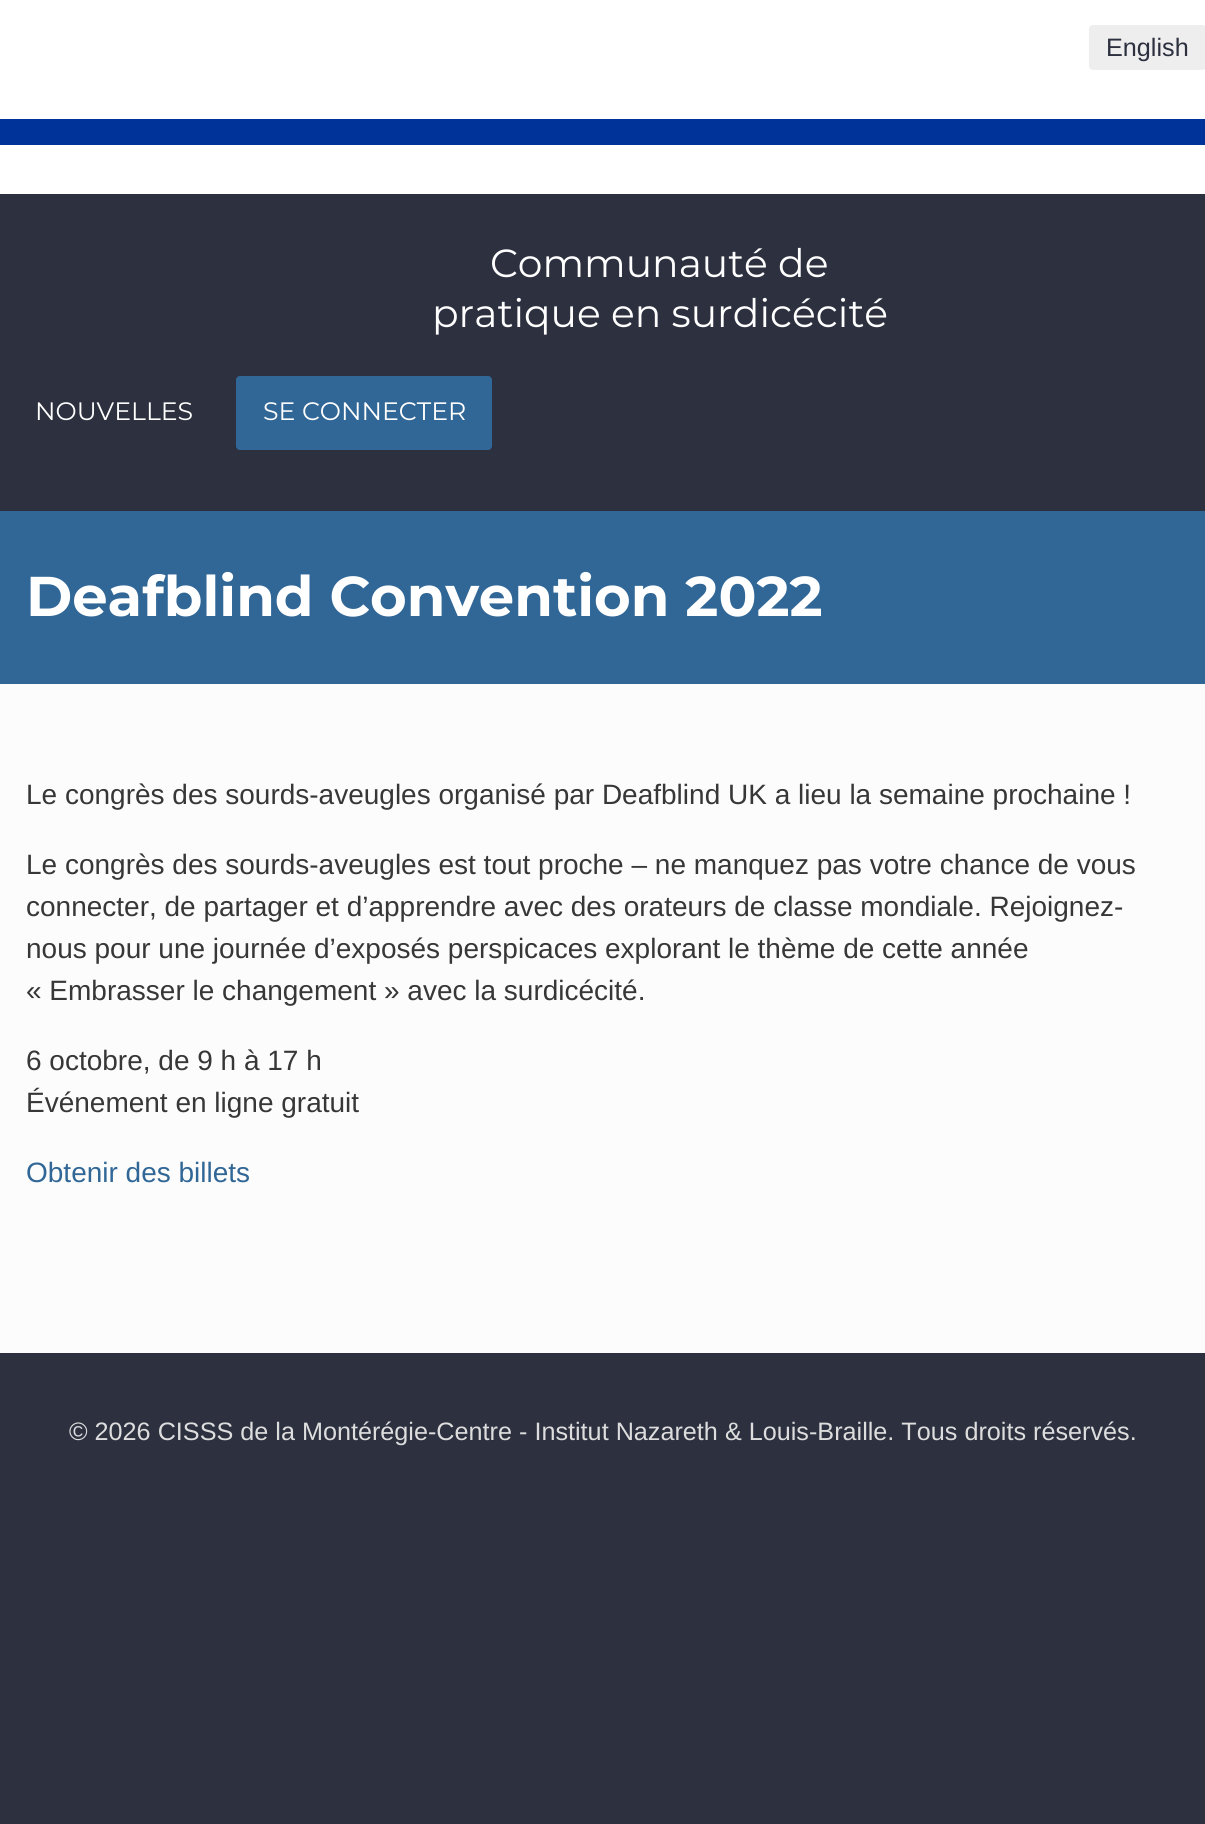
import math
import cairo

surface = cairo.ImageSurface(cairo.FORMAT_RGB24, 1205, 1824)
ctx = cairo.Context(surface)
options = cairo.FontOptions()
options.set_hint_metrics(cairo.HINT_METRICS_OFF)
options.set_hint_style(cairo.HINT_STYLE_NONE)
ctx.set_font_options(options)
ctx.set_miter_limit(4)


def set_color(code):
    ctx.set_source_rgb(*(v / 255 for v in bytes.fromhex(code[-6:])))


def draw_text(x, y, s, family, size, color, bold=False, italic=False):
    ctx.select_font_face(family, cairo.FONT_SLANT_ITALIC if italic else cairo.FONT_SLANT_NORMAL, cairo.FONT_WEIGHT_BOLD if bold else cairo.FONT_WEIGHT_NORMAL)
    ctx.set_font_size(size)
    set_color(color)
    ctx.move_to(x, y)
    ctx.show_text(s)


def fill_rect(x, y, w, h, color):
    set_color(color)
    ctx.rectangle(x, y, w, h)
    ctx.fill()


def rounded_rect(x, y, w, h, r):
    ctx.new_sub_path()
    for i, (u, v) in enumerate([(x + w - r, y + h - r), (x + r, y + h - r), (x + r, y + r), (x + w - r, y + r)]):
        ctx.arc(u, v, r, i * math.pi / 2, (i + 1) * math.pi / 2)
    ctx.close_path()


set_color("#2c303f")
ctx.paint()
fill_rect(0, 0, 1205, 194, "#ffffff")
fill_rect(0, 119, 1205, 26, "#003399")
set_color("#eeeeee")
rounded_rect(1089, 25, 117, 45, 4)
ctx.fill()
draw_text(1106, 56, "English", "Liberation Sans", 25.2, "#2c303f")
draw_text(490, 277, "Communauté de", "Montserrat", 39.25, "#ffffff")
draw_text(432, 327, "pratique en surdicécité", "Montserrat", 39.25, "#ffffff")
draw_text(35, 420, "NOUVELLES", "Montserrat", 25.2, "#ffffff")
set_color("#316796")
rounded_rect(236, 376, 256, 74, 4)
ctx.fill()
draw_text(263, 420, "SE CONNECTER", "Montserrat", 25.2, "#ffffff")
fill_rect(0, 511, 1205, 173, "#316796")
draw_text(26, 616, "Deafblind Convention 2022", "Montserrat", 56, "#ffffff", bold=True)
fill_rect(0, 684, 1205, 669, "#fcfcfc")
draw_text(26, 804, "Le congrès des sourds-aveugles organisé par Deafblind UK a lieu la semaine prochaine !", "Liberation Sans", 28, "#373737")
draw_text(26, 874, "Le congrès des sourds-aveugles est tout proche – ne manquez pas votre chance de vous", "Liberation Sans", 28, "#373737")
draw_text(26, 916, "connecter, de partager et d’apprendre avec des orateurs de classe mondiale. Rejoignez-", "Liberation Sans", 28, "#373737")
draw_text(26, 958, "nous pour une journée d’exposés perspicaces explorant le thème de cette année", "Liberation Sans", 28, "#373737")
draw_text(26, 1000, "« Embrasser le changement » avec la surdicécité.", "Liberation Sans", 28, "#373737")
draw_text(26, 1070, "6 octobre, de 9 h à 17 h", "Liberation Sans", 28, "#373737")
draw_text(26, 1112, "Événement en ligne gratuit", "Liberation Sans", 28, "#373737")
draw_text(26, 1182, "Obtenir des billets", "Liberation Sans", 28, "#316796")
draw_text(69, 1440, "© 2026 CISSS de la Montérégie-Centre - Institut Nazareth & Louis-Braille. Tous droits réservés.", "Liberation Sans", 25.2, "#dddddd")
surface.write_to_png("output.png")
